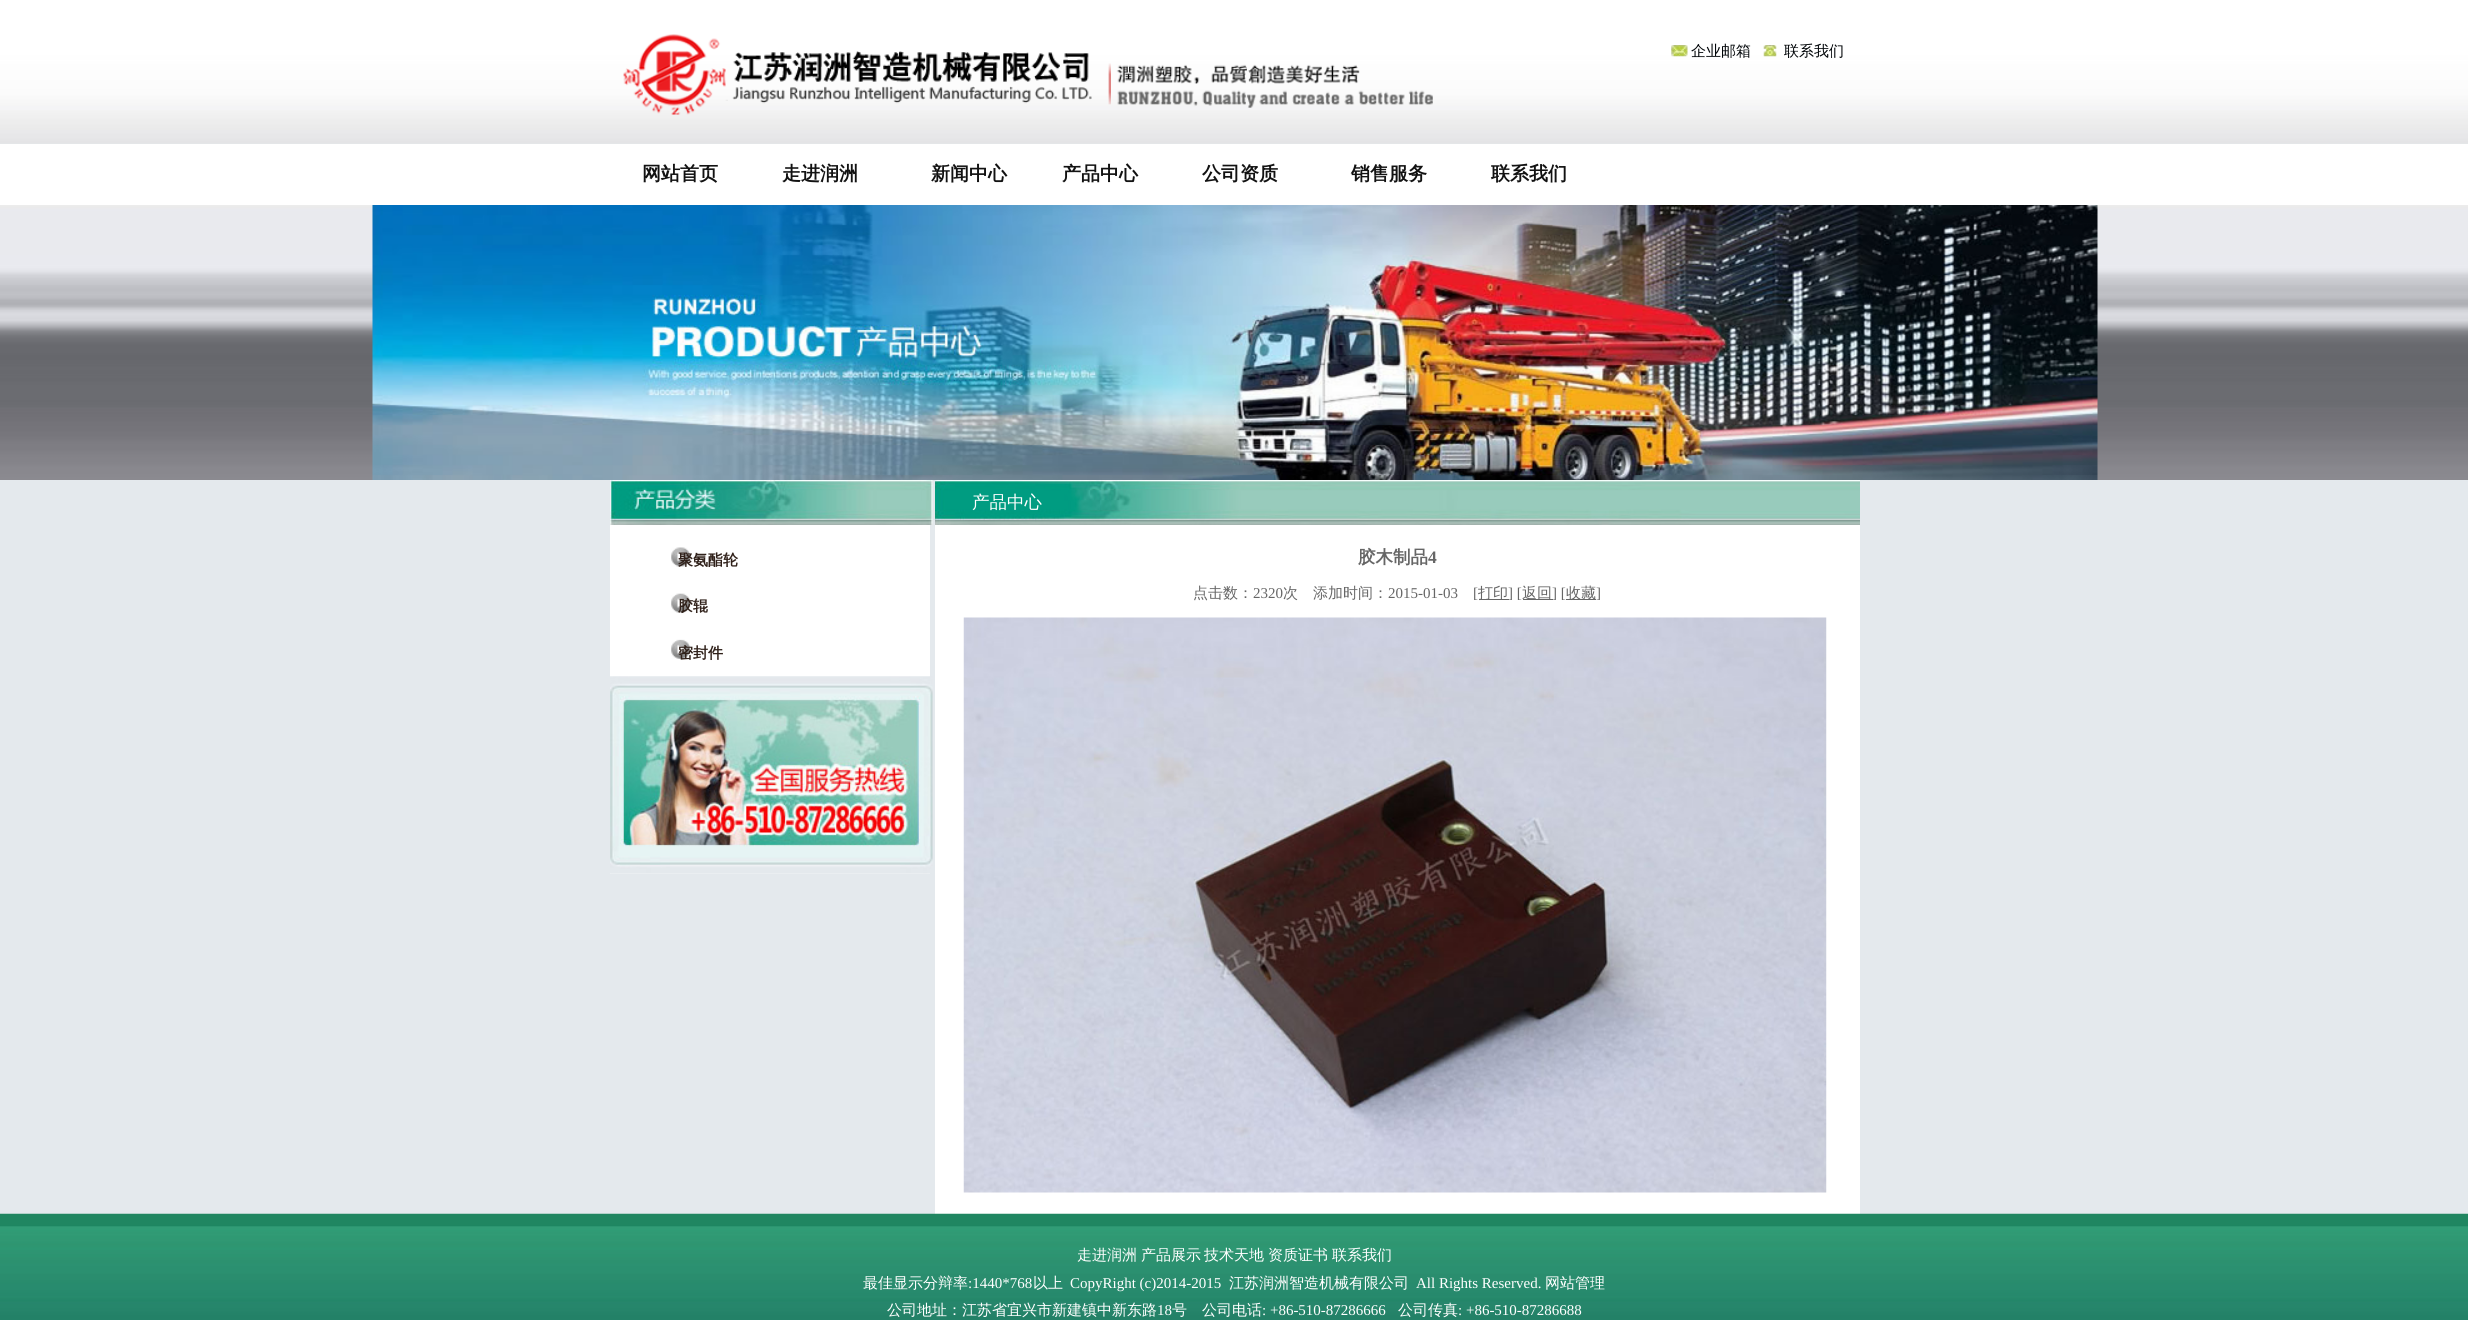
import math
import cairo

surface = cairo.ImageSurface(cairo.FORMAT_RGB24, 2468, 1320)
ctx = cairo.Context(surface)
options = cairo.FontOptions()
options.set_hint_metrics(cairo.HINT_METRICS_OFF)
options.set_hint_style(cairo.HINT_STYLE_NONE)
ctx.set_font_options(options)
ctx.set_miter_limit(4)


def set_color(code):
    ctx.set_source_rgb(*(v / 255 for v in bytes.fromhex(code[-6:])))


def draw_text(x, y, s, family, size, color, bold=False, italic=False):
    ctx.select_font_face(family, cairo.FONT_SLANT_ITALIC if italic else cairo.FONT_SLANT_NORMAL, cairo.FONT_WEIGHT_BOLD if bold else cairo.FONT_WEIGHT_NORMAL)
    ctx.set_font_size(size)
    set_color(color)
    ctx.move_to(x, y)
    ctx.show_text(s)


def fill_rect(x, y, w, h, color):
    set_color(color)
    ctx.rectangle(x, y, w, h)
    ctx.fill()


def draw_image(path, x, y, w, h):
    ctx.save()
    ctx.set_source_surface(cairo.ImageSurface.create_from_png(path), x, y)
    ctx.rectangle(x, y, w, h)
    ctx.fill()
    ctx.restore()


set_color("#e4e9ed")
ctx.paint()
draw_image("assets/img1.png", 0, 0, 2468, 144)
draw_image("assets/img2.png", 623, 34, 810, 81)
draw_image("assets/img3.png", 1671, 45, 17, 12)
draw_text(1691, 56, "企业邮箱", "WenQuanYi Zen Hei Medium", 15, "#000407")
draw_image("assets/img4.png", 1763, 45, 14, 12)
draw_text(1784, 56, "联系我们", "WenQuanYi Zen Hei Medium", 15, "#000407")
fill_rect(0, 144, 2468, 61, "#ffffff")
draw_text(642, 180, "网站首页", "WenQuanYi Zen Hei", 19, "#121212", bold=True)
draw_text(782, 180, "走进润洲", "WenQuanYi Zen Hei", 19, "#121212", bold=True)
draw_text(931, 180, "新闻中心", "WenQuanYi Zen Hei", 19, "#121212", bold=True)
draw_text(1062, 180, "产品中心", "WenQuanYi Zen Hei", 19, "#121212", bold=True)
draw_text(1202, 180, "公司资质", "WenQuanYi Zen Hei", 19, "#121212", bold=True)
draw_text(1351, 180, "销售服务", "WenQuanYi Zen Hei", 19, "#121212", bold=True)
draw_text(1491, 180, "联系我们", "WenQuanYi Zen Hei", 19, "#121212", bold=True)
draw_image("assets/img5.png", 0, 205, 2468, 275)
draw_image("assets/img6.png", 372, 205, 1726, 275)
fill_rect(610, 525, 320, 349, "#ffffff")
draw_image("assets/img7.png", 610, 480, 323, 45)
draw_image("assets/img8.png", 671, 547, 20, 20)
draw_text(678, 565, "聚氨酯轮", "WenQuanYi Zen Hei", 15, "#30211a", bold=True)
draw_image("assets/img9.png", 671, 593, 20, 20)
draw_text(678, 611, "胶辊", "WenQuanYi Zen Hei", 15, "#30211a", bold=True)
draw_image("assets/img10.png", 671, 639, 20, 20)
draw_text(678, 658, "密封件", "WenQuanYi Zen Hei", 15, "#30211a", bold=True)
draw_image("assets/img11.png", 610, 676, 323, 198)
fill_rect(935, 525, 925, 689, "#ffffff")
draw_image("assets/img12.png", 935, 480, 925, 45)
draw_text(972, 508, "产品中心", "WenQuanYi Zen Hei Medium", 17.5, "#ffffff")
draw_text(1358, 563, "胶木制品", "WenQuanYi Zen Hei", 17.5, "#666666", bold=True)
draw_text(1428, 563, "4", "Liberation Serif", 17.5, "#666666", bold=True)
draw_text(1193, 598, "点击数：", "WenQuanYi Zen Hei Medium", 15, "#666666")
draw_text(1253, 598, "2320", "Liberation Serif", 15, "#666666")
draw_text(1283, 598, "次　添加时间：", "WenQuanYi Zen Hei Medium", 15, "#666666")
draw_text(1388, 598, "2015-01-03", "Liberation Serif", 15, "#666666")
draw_text(1473, 598, "[", "Liberation Serif", 15, "#666666")
fill_rect(1479, 599, 30, 1, "#666666")
draw_text(1478, 598, "打印", "WenQuanYi Zen Hei Medium", 15, "#666666")
draw_text(1508, 598, "] [", "Liberation Serif", 15, "#666666")
fill_rect(1523, 599, 30, 1, "#666666")
draw_text(1522, 598, "返回", "WenQuanYi Zen Hei Medium", 15, "#666666")
draw_text(1552, 598, "] [", "Liberation Serif", 15, "#666666")
fill_rect(1566, 599, 30, 1, "#666666")
draw_text(1566, 598, "收藏", "WenQuanYi Zen Hei Medium", 15, "#666666")
draw_text(1596, 598, "]", "Liberation Serif", 15, "#666666")
draw_image("assets/img13.png", 963, 617, 864, 576)
draw_image("assets/img14.png", 0, 1213, 2468, 107)
draw_text(1077, 1260, "走进润洲", "WenQuanYi Zen Hei Medium", 15, "#ffffff")
draw_text(1141, 1260, "产品展示", "WenQuanYi Zen Hei Medium", 15, "#ffffff")
draw_text(1204, 1260, "技术天地", "WenQuanYi Zen Hei Medium", 15, "#ffffff")
draw_text(1268, 1260, "资质证书", "WenQuanYi Zen Hei Medium", 15, "#ffffff")
draw_text(1332, 1260, "联系我们", "WenQuanYi Zen Hei Medium", 15, "#ffffff")
draw_text(863, 1288, "最佳显示分辩率", "WenQuanYi Zen Hei Medium", 15, "#ffffff")
draw_text(968, 1288, ":1440*768", "Liberation Serif", 15, "#ffffff")
draw_text(1033, 1288, "以上", "WenQuanYi Zen Hei Medium", 15, "#ffffff")
draw_text(1070, 1288, "CopyRight (c)2014-2015", "Liberation Serif", 15, "#ffffff")
draw_text(1229, 1288, "江苏润洲智造机械有限公司", "WenQuanYi Zen Hei Medium", 15, "#ffffff")
draw_text(1416, 1288, "All Rights Reserved.", "Liberation Serif", 15, "#ffffff")
draw_text(1545, 1288, "网站管理", "WenQuanYi Zen Hei Medium", 15, "#ffffff")
draw_text(887, 1315, "公司地址：江苏省宜兴市新建镇中新东路", "WenQuanYi Zen Hei Medium", 15, "#ffffff")
draw_text(1157, 1315, "18", "Liberation Serif", 15, "#ffffff")
draw_text(1172, 1315, "号", "WenQuanYi Zen Hei Medium", 15, "#ffffff")
draw_text(1202, 1315, "公司电话", "WenQuanYi Zen Hei Medium", 15, "#ffffff")
draw_text(1262, 1315, ": +86-510-87286666", "Liberation Serif", 15, "#ffffff")
draw_text(1398, 1315, "公司传真", "WenQuanYi Zen Hei Medium", 15, "#ffffff")
draw_text(1458, 1315, ": +86-510-87286688", "Liberation Serif", 15, "#ffffff")
surface.write_to_png("output.png")
